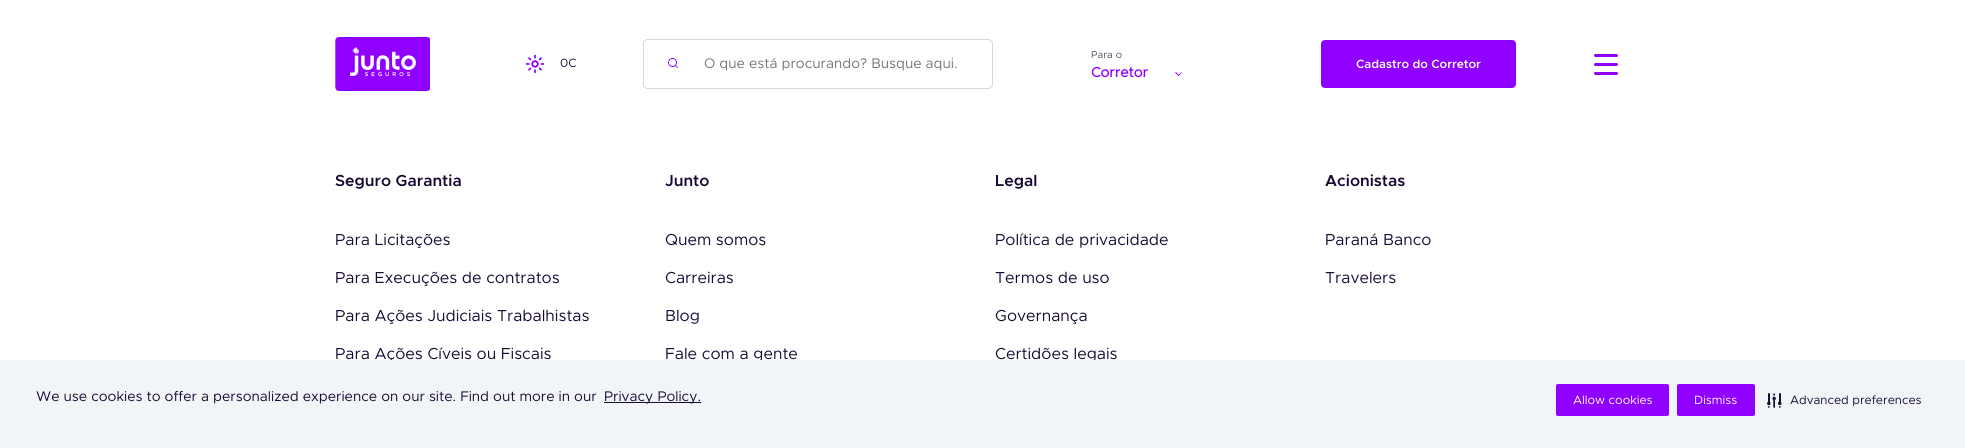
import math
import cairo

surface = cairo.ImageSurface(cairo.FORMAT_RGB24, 1965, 448)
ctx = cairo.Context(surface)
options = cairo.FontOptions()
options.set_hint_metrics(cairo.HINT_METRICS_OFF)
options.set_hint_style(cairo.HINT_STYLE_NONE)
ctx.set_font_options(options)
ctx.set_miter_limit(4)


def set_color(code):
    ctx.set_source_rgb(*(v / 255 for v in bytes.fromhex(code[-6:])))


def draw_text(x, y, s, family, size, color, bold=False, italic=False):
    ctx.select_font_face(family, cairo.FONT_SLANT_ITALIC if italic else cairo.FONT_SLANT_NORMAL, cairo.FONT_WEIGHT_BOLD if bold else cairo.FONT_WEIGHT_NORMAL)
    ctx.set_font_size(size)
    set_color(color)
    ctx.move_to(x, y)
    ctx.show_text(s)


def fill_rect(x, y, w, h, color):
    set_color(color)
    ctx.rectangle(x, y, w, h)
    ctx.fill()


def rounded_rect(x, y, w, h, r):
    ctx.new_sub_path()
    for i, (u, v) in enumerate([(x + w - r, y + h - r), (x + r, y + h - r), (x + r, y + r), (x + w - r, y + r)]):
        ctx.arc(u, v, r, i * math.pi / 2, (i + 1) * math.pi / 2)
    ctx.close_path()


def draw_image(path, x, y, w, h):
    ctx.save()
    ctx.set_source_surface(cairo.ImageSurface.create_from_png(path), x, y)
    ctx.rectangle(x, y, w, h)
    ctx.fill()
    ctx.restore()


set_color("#ffffff")
ctx.paint()
draw_image("assets/img1.png", 335, 37, 95, 54)
draw_image("assets/img2.png", 525, 54, 20, 20)
draw_text(560, 67, "0C", "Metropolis", 12, "#180a33")
rounded_rect(643.5, 39.5, 349, 49, 4.5)
set_color("#cfdae1")
ctx.set_line_width(1)
ctx.stroke()
draw_image("assets/img3.png", 668, 58, 10, 10)
draw_text(704, 68, "O que está procurando? Busque aqui.", "Metropolis", 14, "#757575")
draw_text(1091, 58, "Para o", "Metropolis", 10, "#4a5365")
draw_text(1091, 77, "Corretor", "Metropolis", 14, "#9000ff", bold=True)
ctx.new_path()
ctx.move_to(1178, 75.5)
ctx.line_to(1181.5, 72)
ctx.line_to(1182, 72.5)
ctx.line_to(1178.5, 76)
ctx.close_path()
ctx.fill()
ctx.new_path()
ctx.move_to(1175, 72.5)
ctx.line_to(1176, 72)
ctx.line_to(1179.5, 75.5)
ctx.line_to(1178.5, 76)
ctx.close_path()
ctx.fill()
rounded_rect(1321, 40, 195, 48, 4)
ctx.fill()
draw_text(1356, 68, "Cadastro do Corretor", "Metropolis SemiBold", 12, "#ffffff")
draw_image("assets/img4.png", 1594, 54, 24, 21)
draw_text(335, 186, "Seguro Garantia", "Metropolis SemiBold", 16, "#180a33")
draw_text(335, 245, "Para Licitações", "Metropolis", 16, "#180a33")
draw_text(335, 283, "Para Execuções de contratos", "Metropolis", 16, "#180a33")
draw_text(335, 321, "Para Ações Judiciais Trabalhistas", "Metropolis", 16, "#180a33")
draw_text(335, 359, "Para Ações Cíveis ou Fiscais", "Metropolis", 16, "#180a33")
draw_text(665, 186, "Junto", "Metropolis SemiBold", 16, "#180a33")
draw_text(665, 245, "Quem somos", "Metropolis", 16, "#180a33")
draw_text(665, 283, "Carreiras", "Metropolis", 16, "#180a33")
draw_text(665, 321, "Blog", "Metropolis", 16, "#180a33")
draw_text(665, 359, "Fale com a gente", "Metropolis", 16, "#180a33")
draw_text(995, 186, "Legal", "Metropolis SemiBold", 16, "#180a33")
draw_text(995, 245, "Política de privacidade", "Metropolis", 16, "#180a33")
draw_text(995, 283, "Termos de uso", "Metropolis", 16, "#180a33")
draw_text(995, 321, "Governança", "Metropolis", 16, "#180a33")
draw_text(995, 359, "Certidões legais", "Metropolis", 16, "#180a33")
draw_text(1325, 186, "Acionistas", "Metropolis SemiBold", 16, "#180a33")
draw_text(1325, 245, "Paraná Banco", "Metropolis", 16, "#180a33")
draw_text(1325, 283, "Travelers", "Metropolis", 16, "#180a33")
fill_rect(0, 360, 1965, 88, "#f1f5f7")
draw_text(36, 401, "We use cookies to offer a personalized experience on our site. Find out more in our", "Metropolis", 14, "#180a33")
fill_rect(604, 402, 97, 1, "#180a33")
draw_text(604, 401, "Privacy Policy.", "Metropolis", 14, "#180a33")
set_color("#9000ff")
rounded_rect(1556.5, 384.5, 112, 31, 1.5)
ctx.fill_preserve()
ctx.stroke()
draw_text(1573, 404, "Allow cookies", "Metropolis", 12, "#ffffff")
set_color("#9000ff")
rounded_rect(1677.5, 384.5, 77, 31, 1.5)
ctx.fill_preserve()
ctx.stroke()
draw_text(1694, 404, "Dismiss", "Metropolis", 12, "#ffffff")
draw_image("assets/img5.png", 1767, 393, 15, 15)
draw_text(1790, 404, "Advanced preferences", "Metropolis", 12, "#180a33")
surface.write_to_png("output.png")
